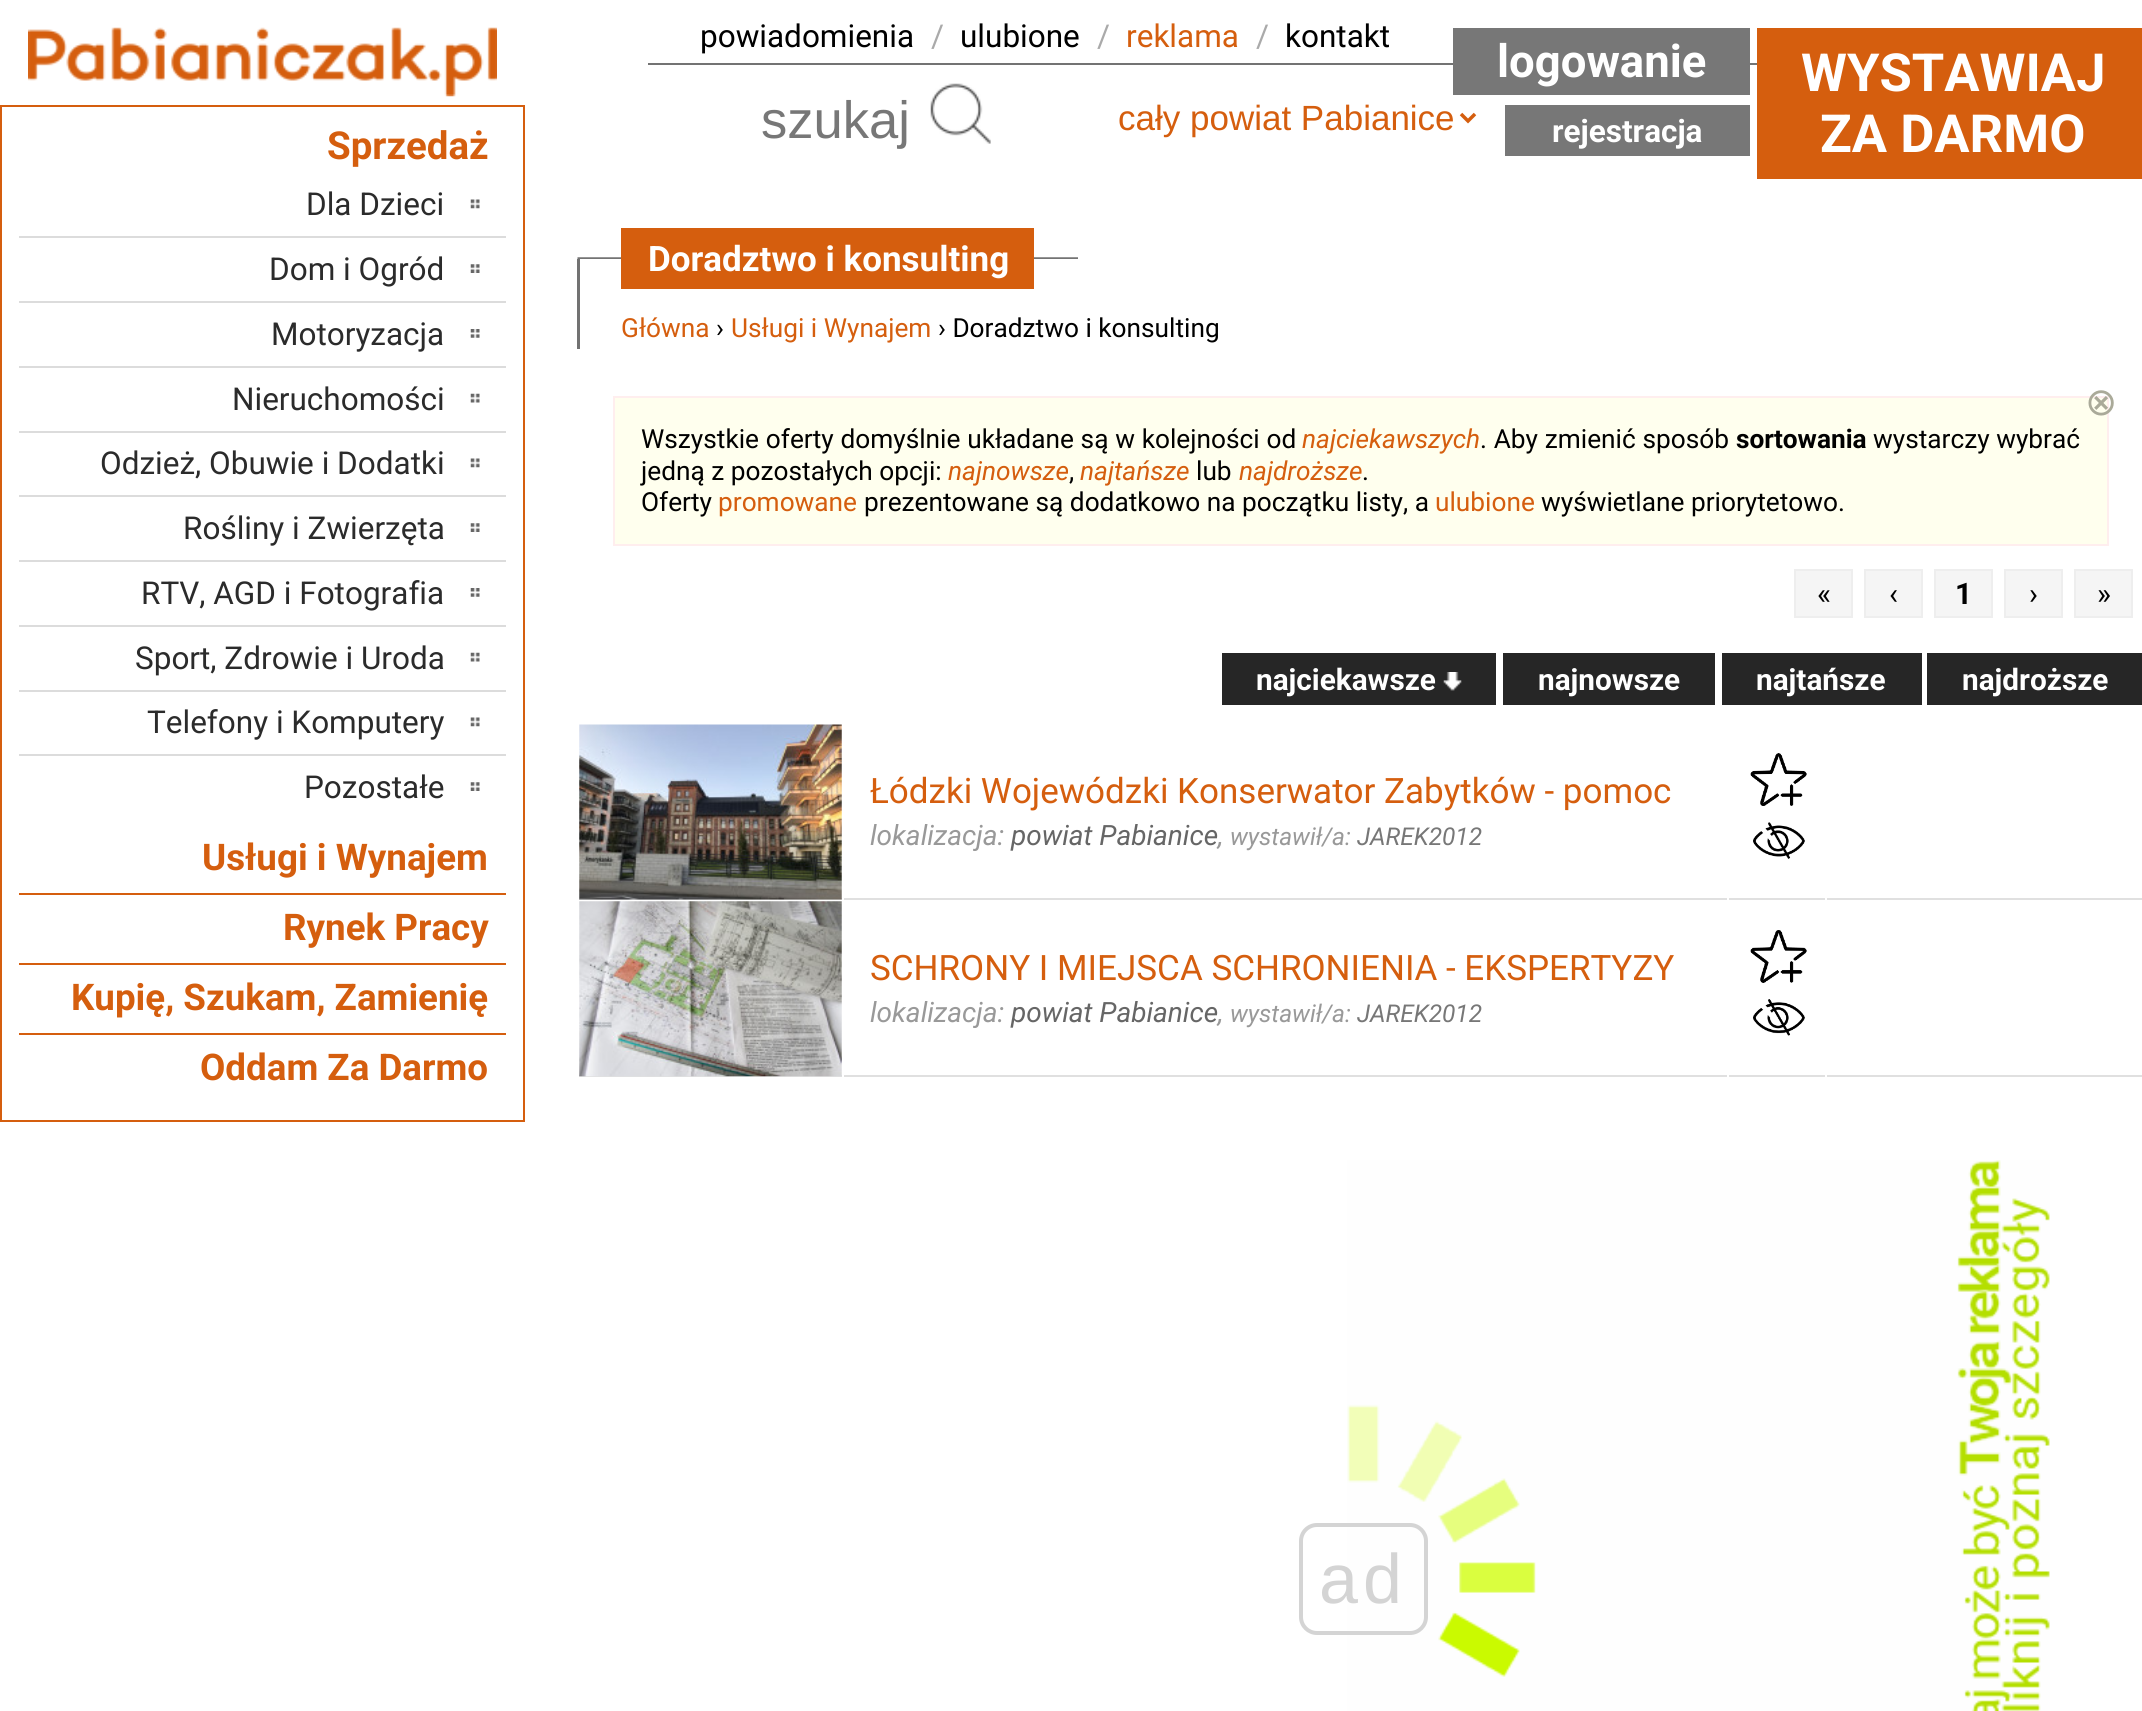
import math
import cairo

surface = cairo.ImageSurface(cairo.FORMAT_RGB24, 2142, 1711)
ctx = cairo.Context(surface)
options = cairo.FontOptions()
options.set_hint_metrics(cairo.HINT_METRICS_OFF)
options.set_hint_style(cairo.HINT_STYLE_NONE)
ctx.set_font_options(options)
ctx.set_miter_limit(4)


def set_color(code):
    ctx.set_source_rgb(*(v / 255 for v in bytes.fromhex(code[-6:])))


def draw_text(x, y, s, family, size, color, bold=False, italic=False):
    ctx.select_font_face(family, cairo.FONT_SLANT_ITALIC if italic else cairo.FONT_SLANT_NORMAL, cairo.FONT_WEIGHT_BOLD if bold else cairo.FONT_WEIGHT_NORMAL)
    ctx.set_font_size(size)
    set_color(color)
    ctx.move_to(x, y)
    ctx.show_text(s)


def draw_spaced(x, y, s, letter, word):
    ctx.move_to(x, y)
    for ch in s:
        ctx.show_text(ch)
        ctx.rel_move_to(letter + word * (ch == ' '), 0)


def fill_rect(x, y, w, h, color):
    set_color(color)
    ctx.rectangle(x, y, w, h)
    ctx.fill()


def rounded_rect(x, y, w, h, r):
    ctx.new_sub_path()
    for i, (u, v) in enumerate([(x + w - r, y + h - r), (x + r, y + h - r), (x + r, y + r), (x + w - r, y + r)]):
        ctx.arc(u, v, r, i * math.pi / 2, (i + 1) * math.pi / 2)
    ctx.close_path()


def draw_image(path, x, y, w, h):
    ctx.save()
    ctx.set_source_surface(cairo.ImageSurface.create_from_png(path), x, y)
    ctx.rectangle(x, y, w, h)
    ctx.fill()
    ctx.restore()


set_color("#ffffff")
ctx.paint()
draw_image("assets/img1.png", 28, 27, 469, 70)
fill_rect(648, 63, 1109, 2, "#737373")
draw_text(700, 47, "powiadomienia", "Roboto", 31.5, "#000000")
draw_text(931, 47, "/", "Roboto", 31.5, "#aaaaaa")
draw_text(960, 47, "ulubione", "Roboto", 31.5, "#000000")
draw_text(1097, 47, "/", "Roboto", 31.5, "#aaaaaa")
draw_text(1126, 47, "reklama", "Roboto", 31.5, "#d55e0e")
draw_text(1256, 47, "/", "Roboto", 31.5, "#aaaaaa")
draw_text(1285, 47, "kontakt", "Roboto", 31.5, "#000000")
fill_rect(1453, 28, 297, 67, "#777777")
draw_text(1497, 77, "logowanie", "Roboto", 45.5, "#ffffff", bold=True)
fill_rect(1757, 28, 385, 151, "#d55e0e")
draw_text(1801, 91, "WYSTAWIAJ", "Roboto", 52.5, "#ffffff", bold=True)
draw_text(1820, 152, "ZA DARMO", "Roboto", 52.5, "#ffffff", bold=True)
draw_text(761, 138, "szukaj", "Liberation Sans", 52.5, "#777777")
draw_image("assets/img2.png", 930, 83, 61, 61)
ctx.new_path()
ctx.move_to(1461, 114)
ctx.line_to(1468, 121)
ctx.line_to(1475, 114)
set_color("#d55e0e")
ctx.set_line_width(3.5)
ctx.stroke()
draw_text(1118, 130, "cały powiat Pabianice", "Liberation Sans", 35, "#d55e0e")
fill_rect(1505, 105, 245, 51, "#777777")
draw_text(1552, 142, "rejestracja", "Roboto", 31.5, "#ffffff", bold=True)
ctx.rectangle(1, 106, 523, 1015)
set_color("#d55e0e")
ctx.set_line_width(2)
ctx.stroke()
draw_text(327, 159, "Sprzedaż", "Roboto", 38.5, "#d55e0e", bold=True)
fill_rect(19, 236, 487, 2, "#dcdcdc")
draw_image("assets/img3.png", 470, 199, 10, 10)
draw_text(306, 215, "Dla Dzieci", "Roboto", 31.5, "#2b2b2b")
fill_rect(19, 301, 487, 2, "#dcdcdc")
draw_image("assets/img4.png", 470, 264, 10, 9)
draw_text(269, 280, "Dom i Ogród", "Roboto", 31.5, "#2b2b2b")
fill_rect(19, 366, 487, 2, "#dcdcdc")
draw_image("assets/img5.png", 470, 329, 10, 9)
draw_text(271, 345, "Motoryzacja", "Roboto", 31.5, "#2b2b2b")
fill_rect(19, 431, 487, 2, "#dcdcdc")
draw_image("assets/img6.png", 470, 393, 10, 10)
draw_text(232, 410, "Nieruchomości", "Roboto", 31.5, "#2b2b2b")
fill_rect(19, 495, 487, 2, "#dcdcdc")
draw_image("assets/img3.png", 470, 458, 10, 10)
draw_text(100, 474, "Odzież, Obuwie i Dodatki", "Roboto", 31.5, "#2b2b2b")
fill_rect(19, 560, 487, 2, "#dcdcdc")
draw_image("assets/img4.png", 470, 523, 10, 9)
draw_text(183, 539, "Rośliny i Zwierzęta", "Roboto", 31.5, "#2b2b2b")
fill_rect(19, 625, 487, 2, "#dcdcdc")
draw_image("assets/img5.png", 470, 588, 10, 9)
draw_text(141, 604, "RTV, AGD i Fotografia", "Roboto", 31.5, "#2b2b2b")
fill_rect(19, 690, 487, 2, "#dcdcdc")
draw_image("assets/img6.png", 470, 652, 10, 10)
draw_text(135, 669, "Sport, Zdrowie i Uroda", "Roboto", 31.5, "#2b2b2b")
fill_rect(19, 754, 487, 2, "#dcdcdc")
draw_image("assets/img3.png", 470, 717, 10, 10)
draw_text(147, 733, "Telefony i Komputery", "Roboto", 31.5, "#2b2b2b")
draw_image("assets/img4.png", 470, 782, 10, 9)
draw_text(304, 798, "Pozostałe", "Roboto", 31.5, "#2b2b2b")
fill_rect(19, 893, 487, 2, "#d55e0e")
draw_text(202, 870, "Usługi i Wynajem", "Roboto", 36.75, "#d55e0e", bold=True)
fill_rect(19, 963, 487, 2, "#d55e0e")
draw_text(283, 940, "Rynek Pracy", "Roboto", 36.75, "#d55e0e", bold=True)
fill_rect(19, 1033, 487, 2, "#d55e0e")
draw_text(71, 1010, "Kupię, Szukam, Zamienię", "Roboto", 36.75, "#d55e0e", bold=True)
draw_text(200, 1080, "Oddam Za Darmo", "Roboto", 36.75, "#d55e0e", bold=True)
draw_image("assets/img7.png", 577, 257, 501, 2)
fill_rect(621, 228, 413, 61, "#d55e0e")
draw_text(648, 271, "Doradztwo i konsulting", "Roboto", 35, "#ffffff", bold=True)
fill_rect(577, 259, 3, 90, "#727272")
draw_text(621, 337, "Główna", "Roboto", 26.25, "#d55e0e")
draw_text(716, 337, "›", "Roboto", 26.25, "#000000")
draw_text(731, 337, "Usługi i Wynajem", "Roboto", 26.25, "#d55e0e")
draw_text(938, 337, "› Doradztwo i konsulting", "Roboto", 26.25, "#000000")
set_color("#ffffee")
ctx.rectangle(614, 397, 1494, 148)
ctx.fill_preserve()
set_color("#ffeeee")
ctx.stroke()
draw_text(2085, 415, "⊗", "DejaVu Sans", 38.5, "#aaaa99")
ctx.select_font_face("Roboto")
ctx.set_font_size(26.25)
set_color("#000000")
draw_spaced(641, 448, "Wszystkie oferty domyślnie układane są w kolejności od", 0, 0.25)
draw_text(1302, 448, "najciekawszych", "Roboto", 26.25, "#d55e0e", italic=True)
ctx.select_font_face("Roboto")
set_color("#000000")
draw_spaced(1480, 448, ". Aby zmienić sposób", 0, 0.25)
draw_text(1736, 448, "sortowania", "Roboto", 26.25, "#000000", bold=True)
draw_text(1873, 448, "wystarczy wybrać", "Roboto", 26.25, "#000000")
draw_text(641, 480, "jedną z pozostałych opcji:", "Roboto", 26.25, "#000000")
draw_text(948, 480, "najnowsze", "Roboto", 26.25, "#d55e0e", italic=True)
draw_text(1069, 480, ",", "Roboto", 26.25, "#000000")
draw_text(1080, 480, "najtańsze", "Roboto", 26.25, "#d55e0e", italic=True)
draw_text(1196, 480, "lub", "Roboto", 26.25, "#000000")
draw_text(1239, 480, "najdroższe", "Roboto", 26.25, "#d55e0e", italic=True)
draw_text(1362, 480, ".", "Roboto", 26.25, "#000000")
draw_text(641, 511, "Oferty", "Roboto", 26.25, "#000000")
draw_text(718, 511, "promowane", "Roboto", 26.25, "#d55e0e")
draw_text(864, 511, "prezentowane są dodatkowo na początku listy, a", "Roboto", 26.25, "#000000")
draw_text(1435, 511, "ulubione", "Roboto", 26.25, "#d55e0e")
draw_text(1541, 511, "wyświetlane priorytetowo.", "Roboto", 26.25, "#000000")
set_color("#f5f5f5")
ctx.rectangle(1795, 570, 57, 47)
ctx.fill_preserve()
set_color("#eeeeee")
ctx.stroke()
draw_text(1817, 604, "«", "Roboto", 29.75, "#000000")
set_color("#f5f5f5")
ctx.rectangle(1865, 570, 57, 47)
ctx.fill_preserve()
set_color("#eeeeee")
ctx.stroke()
draw_text(1889, 604, "‹", "Roboto", 29.75, "#000000")
set_color("#f5f5f5")
ctx.rectangle(1935, 570, 57, 47)
ctx.fill_preserve()
set_color("#eeeeee")
ctx.stroke()
draw_text(1955, 604, "1", "Roboto", 29.75, "#000000", bold=True)
set_color("#f5f5f5")
ctx.rectangle(2005, 570, 57, 47)
ctx.fill_preserve()
set_color("#eeeeee")
ctx.stroke()
draw_text(2029, 604, "›", "Roboto", 29.75, "#000000")
set_color("#f5f5f5")
ctx.rectangle(2075, 570, 57, 47)
ctx.fill_preserve()
set_color("#eeeeee")
ctx.stroke()
draw_text(2097, 604, "»", "Roboto", 29.75, "#000000")
fill_rect(1222, 653, 274, 52, "#262626")
draw_text(1256, 690, "najciekawsze", "Roboto", 29.75, "#ffffff", bold=True)
draw_image("assets/img8.png", 1443, 672, 19, 19)
fill_rect(1503, 653, 212, 52, "#262626")
draw_text(1538, 690, "najnowsze", "Roboto", 29.75, "#ffffff", bold=True)
fill_rect(1722, 653, 200, 52, "#262626")
draw_text(1756, 690, "najtańsze", "Roboto", 29.75, "#ffffff", bold=True)
fill_rect(1927, 653, 215, 52, "#262626")
draw_text(1962, 690, "najdroższe", "Roboto", 29.75, "#ffffff", bold=True)
fill_rect(579, 898, 263, 2, "#e0e0e0")
draw_image("assets/img9.png", 579, 724, 263, 176)
fill_rect(844, 898, 883, 2, "#e0e0e0")
draw_text(870, 803, "Łódzki Wojewódzki Konserwator Zabytków - pomoc", "Roboto", 35, "#d55e0e")
draw_text(870, 845, "lokalizacja:", "Roboto", 28, "#999999", italic=True)
draw_text(1011, 845, "powiat Pabianice", "Roboto", 28, "#666666", italic=True)
draw_text(1218, 845, ",", "Roboto", 28, "#999999", italic=True)
draw_text(1230, 845, "wystawił/a:", "Roboto", 24.5, "#999999", italic=True)
draw_text(1357, 845, "JAREK2012", "Roboto", 24.5, "#777777", italic=True)
fill_rect(1729, 898, 96, 2, "#e0e0e0")
draw_image("assets/img10.png", 1750, 753, 57, 53)
draw_image("assets/img11.png", 1753, 822, 52, 37)
fill_rect(1827, 898, 315, 2, "#e0e0e0")
fill_rect(579, 1075, 263, 2, "#e0e0e0")
draw_image("assets/img12.png", 579, 901, 263, 176)
fill_rect(844, 1075, 883, 2, "#e0e0e0")
draw_text(870, 980, "SCHRONY I MIEJSCA SCHRONIENIA - EKSPERTYZY", "Roboto", 35, "#d55e0e")
draw_text(870, 1022, "lokalizacja:", "Roboto", 28, "#999999", italic=True)
draw_text(1011, 1022, "powiat Pabianice", "Roboto", 28, "#666666", italic=True)
draw_text(1218, 1022, ",", "Roboto", 28, "#999999", italic=True)
draw_text(1230, 1022, "wystawił/a:", "Roboto", 24.5, "#999999", italic=True)
draw_text(1357, 1022, "JAREK2012", "Roboto", 24.5, "#777777", italic=True)
fill_rect(1729, 1075, 96, 2, "#e0e0e0")
draw_image("assets/img13.png", 1750, 930, 57, 53)
draw_image("assets/img14.png", 1753, 999, 52, 37)
fill_rect(1827, 1075, 315, 2, "#e0e0e0")
draw_image("assets/img15.png", 1347, 1160, 703, 551)
rounded_rect(1301, 1525, 125, 108, 16)
set_color("#d4d4d4")
ctx.set_line_width(4)
ctx.stroke()
ctx.select_font_face("Liberation Sans")
ctx.set_font_size(70)
draw_spaced(1319, 1603, "ad", 5, 0)
surface.write_to_png("output.png")
